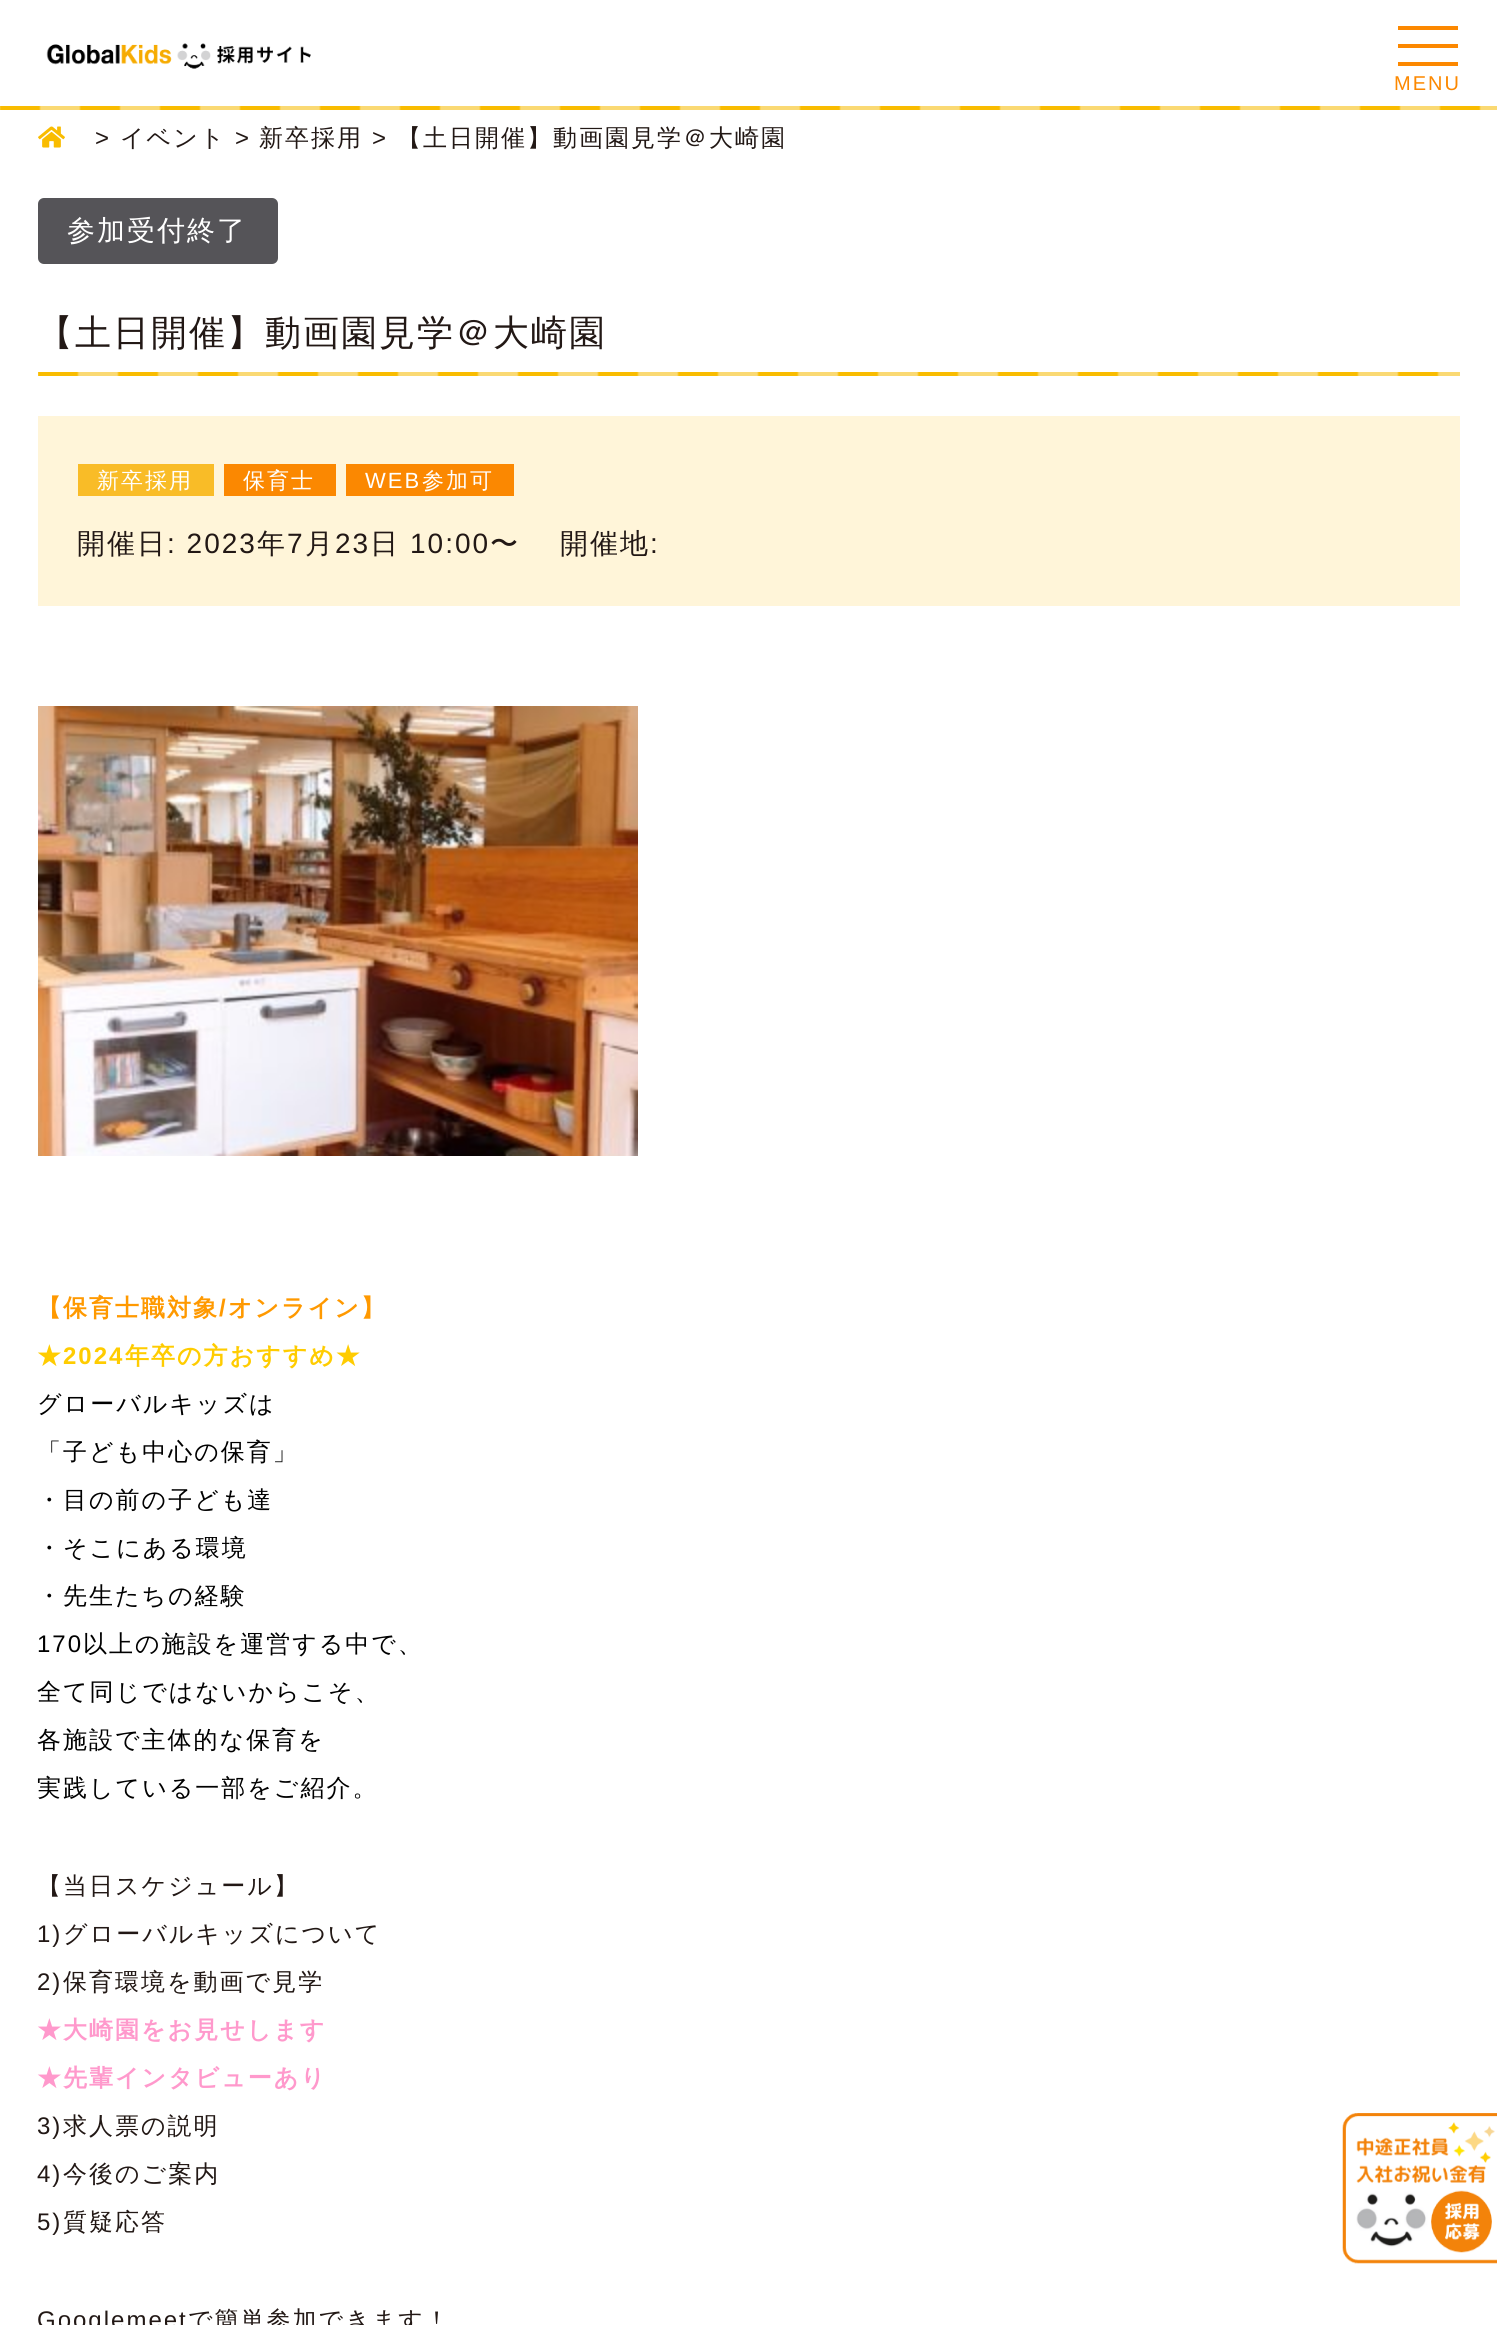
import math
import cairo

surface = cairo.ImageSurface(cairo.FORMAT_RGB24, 1497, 2325)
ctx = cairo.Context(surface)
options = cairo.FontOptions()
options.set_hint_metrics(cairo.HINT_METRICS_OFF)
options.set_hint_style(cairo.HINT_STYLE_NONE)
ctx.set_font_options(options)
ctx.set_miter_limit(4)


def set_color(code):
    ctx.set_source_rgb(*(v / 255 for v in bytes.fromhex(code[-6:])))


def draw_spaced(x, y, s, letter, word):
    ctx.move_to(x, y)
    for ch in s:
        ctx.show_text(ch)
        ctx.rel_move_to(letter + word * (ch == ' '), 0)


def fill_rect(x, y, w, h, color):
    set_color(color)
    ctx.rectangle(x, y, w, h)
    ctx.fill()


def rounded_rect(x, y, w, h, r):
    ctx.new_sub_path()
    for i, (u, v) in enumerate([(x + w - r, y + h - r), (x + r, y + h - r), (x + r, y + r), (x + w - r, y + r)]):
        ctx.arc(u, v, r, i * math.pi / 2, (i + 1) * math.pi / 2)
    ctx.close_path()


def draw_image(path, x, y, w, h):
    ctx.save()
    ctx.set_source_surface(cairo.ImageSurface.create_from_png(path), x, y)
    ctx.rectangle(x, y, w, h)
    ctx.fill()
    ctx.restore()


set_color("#ffffff")
ctx.paint()
draw_image("assets/img1.png", 0, 106, 1497, 4)
draw_image("assets/img2.png", 46, 43, 265, 26)
fill_rect(1398, 26, 60, 4, "#fc8800")
fill_rect(1398, 62, 60, 4, "#fc8800")
fill_rect(1398, 44, 60, 4, "#fc8800")
ctx.select_font_face("Liberation Sans")
ctx.set_font_size(20)
draw_spaced(1394, 90, "MENU", 2, 0)
draw_image("assets/img3.png", 38, 126, 27, 22)
ctx.set_font_size(24)
set_color("#221815")
draw_spaced(95, 146, ">", 2, 0)
ctx.select_font_face("WenQuanYi Zen Hei Medium")
draw_spaced(120, 146, "イベント", 2, 0)
ctx.select_font_face("Liberation Sans")
draw_spaced(235, 146, ">", 2, 0)
ctx.select_font_face("WenQuanYi Zen Hei Medium")
draw_spaced(259, 146, "新卒採用", 2, 0)
ctx.select_font_face("Liberation Sans")
draw_spaced(372, 146, ">", 2, 0)
ctx.select_font_face("WenQuanYi Zen Hei Medium")
draw_spaced(397, 146, "【土日開催】動画園見学＠大崎園", 2, 0)
set_color("#555458")
rounded_rect(38, 198, 240, 66, 6)
ctx.fill()
ctx.set_font_size(28)
set_color("#ffffff")
draw_spaced(67, 240, "参加受付終了", 2, 0)
draw_image("assets/img4.png", 38, 372, 1422, 4)
ctx.set_font_size(36)
set_color("#221815")
draw_spaced(37, 345, "【土日開催】動画園見学＠大崎園", 2, 0)
fill_rect(38, 416, 1422, 190, "#fff5d9")
fill_rect(78, 464, 136, 32, "#f9bc27")
ctx.set_font_size(22)
set_color("#ffffff")
draw_spaced(97, 488, "新卒採用", 2, 0)
fill_rect(224, 464, 112, 32, "#fb8801")
set_color("#ffffff")
draw_spaced(243, 488, "保育士", 2, 0)
fill_rect(346, 464, 168, 32, "#fb8801")
ctx.select_font_face("Liberation Sans")
set_color("#ffffff")
draw_spaced(365, 488, "WEB", 2, 0)
ctx.select_font_face("WenQuanYi Zen Hei Medium")
draw_spaced(422, 488, "参加可", 2, 0)
ctx.set_font_size(28)
set_color("#221815")
draw_spaced(77, 553, "開催日", 2, 0)
ctx.select_font_face("Liberation Sans")
draw_spaced(167, 553, ": 2023", 2, 0)
ctx.select_font_face("WenQuanYi Zen Hei Medium")
draw_spaced(257, 553, "年", 2, 0)
ctx.select_font_face("Liberation Sans")
draw_spaced(287, 553, "7", 2, 0)
ctx.select_font_face("WenQuanYi Zen Hei Medium")
draw_spaced(305, 553, "月", 2, 0)
ctx.select_font_face("Liberation Sans")
draw_spaced(335, 553, "23", 2, 0)
ctx.select_font_face("WenQuanYi Zen Hei Medium")
draw_spaced(370, 553, "日", 2, 0)
ctx.select_font_face("Liberation Sans")
draw_spaced(410, 553, "10:00", 2, 0)
ctx.select_font_face("WenQuanYi Zen Hei Medium")
draw_spaced(490, 553, "〜", 2, 0)
draw_spaced(560, 553, "開催地", 2, 0)
ctx.select_font_face("Liberation Sans")
draw_spaced(650, 553, ":", 2, 0)
draw_image("assets/img5.png", 38, 706, 600, 450)
ctx.select_font_face("WenQuanYi Zen Hei", cairo.FONT_SLANT_NORMAL, cairo.FONT_WEIGHT_BOLD)
ctx.set_font_size(24)
set_color("#ff9900")
draw_spaced(37, 1316, "【保育士職対象", 2, 0)
ctx.select_font_face("Liberation Sans", cairo.FONT_SLANT_NORMAL, cairo.FONT_WEIGHT_BOLD)
draw_spaced(219, 1316, "/", 2, 0)
ctx.select_font_face("WenQuanYi Zen Hei", cairo.FONT_SLANT_NORMAL, cairo.FONT_WEIGHT_BOLD)
draw_spaced(228, 1316, "オンライン】", 2, 0)
set_color("#ffcc00")
draw_spaced(37, 1364, "★", 2, 0)
ctx.select_font_face("Liberation Sans", cairo.FONT_SLANT_NORMAL, cairo.FONT_WEIGHT_BOLD)
draw_spaced(63, 1364, "2024", 2, 0)
ctx.select_font_face("WenQuanYi Zen Hei", cairo.FONT_SLANT_NORMAL, cairo.FONT_WEIGHT_BOLD)
draw_spaced(125, 1364, "年卒の方おすすめ★", 2, 0)
ctx.select_font_face("WenQuanYi Zen Hei Medium")
set_color("#000000")
draw_spaced(37, 1412, "グローバルキッズは", 2, 0)
draw_spaced(37, 1460, "「子ども中心の保育」", 2, 0)
draw_spaced(37, 1508, "・目の前の子ども達", 2, 0)
draw_spaced(37, 1556, "・そこにある環境", 2, 0)
draw_spaced(37, 1604, "・先生たちの経験", 2, 0)
ctx.select_font_face("Liberation Sans")
draw_spaced(37, 1652, "170", 2, 0)
ctx.select_font_face("WenQuanYi Zen Hei Medium")
draw_spaced(83, 1652, "以上の施設を運営する中で、", 2, 0)
draw_spaced(37, 1700, "全て同じではないからこそ、", 2, 0)
draw_spaced(37, 1748, "各施設で主体的な保育を", 2, 0)
draw_spaced(37, 1796, "実践している一部をご紹介。", 2, 0)
set_color("#221815")
draw_spaced(37, 1894, "【当日スケジュール】", 2, 0)
ctx.select_font_face("Liberation Sans")
draw_spaced(37, 1942, "1)", 2, 0)
ctx.select_font_face("WenQuanYi Zen Hei Medium")
draw_spaced(63, 1942, "グローバルキッズについて", 2, 0)
ctx.select_font_face("Liberation Sans")
draw_spaced(37, 1990, "2)", 2, 0)
ctx.select_font_face("WenQuanYi Zen Hei Medium")
draw_spaced(63, 1990, "保育環境を動画で見学", 2, 0)
ctx.select_font_face("WenQuanYi Zen Hei", cairo.FONT_SLANT_NORMAL, cairo.FONT_WEIGHT_BOLD)
set_color("#ff99cc")
draw_spaced(37, 2038, "★大崎園をお見せします", 2, 0)
draw_spaced(37, 2086, "★先輩インタビューあり", 2, 0)
ctx.select_font_face("Liberation Sans")
set_color("#221815")
draw_spaced(37, 2134, "3)", 2, 0)
ctx.select_font_face("WenQuanYi Zen Hei Medium")
draw_spaced(63, 2134, "求人票の説明", 2, 0)
ctx.select_font_face("Liberation Sans")
draw_spaced(37, 2182, "4)", 2, 0)
ctx.select_font_face("WenQuanYi Zen Hei Medium")
draw_spaced(63, 2182, "今後のご案内", 2, 0)
ctx.select_font_face("Liberation Sans")
draw_spaced(37, 2230, "5)", 2, 0)
ctx.select_font_face("WenQuanYi Zen Hei Medium")
draw_spaced(63, 2230, "質疑応答", 2, 0)
ctx.select_font_face("Liberation Sans")
draw_spaced(37, 2328, "Googlemeet", 2, 0)
ctx.select_font_face("WenQuanYi Zen Hei Medium")
draw_spaced(188, 2328, "で簡単参加できます！", 2, 0)
draw_image("assets/img6.png", 1342, 2113, 155, 151)
surface.write_to_png("output.png")
